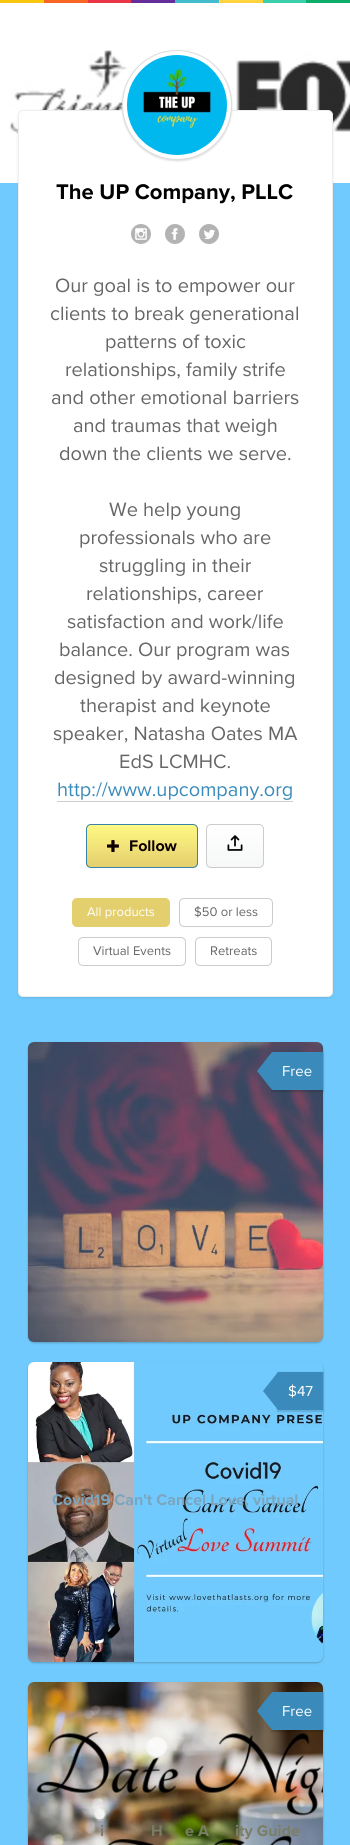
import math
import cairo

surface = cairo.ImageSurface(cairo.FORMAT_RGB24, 350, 1845)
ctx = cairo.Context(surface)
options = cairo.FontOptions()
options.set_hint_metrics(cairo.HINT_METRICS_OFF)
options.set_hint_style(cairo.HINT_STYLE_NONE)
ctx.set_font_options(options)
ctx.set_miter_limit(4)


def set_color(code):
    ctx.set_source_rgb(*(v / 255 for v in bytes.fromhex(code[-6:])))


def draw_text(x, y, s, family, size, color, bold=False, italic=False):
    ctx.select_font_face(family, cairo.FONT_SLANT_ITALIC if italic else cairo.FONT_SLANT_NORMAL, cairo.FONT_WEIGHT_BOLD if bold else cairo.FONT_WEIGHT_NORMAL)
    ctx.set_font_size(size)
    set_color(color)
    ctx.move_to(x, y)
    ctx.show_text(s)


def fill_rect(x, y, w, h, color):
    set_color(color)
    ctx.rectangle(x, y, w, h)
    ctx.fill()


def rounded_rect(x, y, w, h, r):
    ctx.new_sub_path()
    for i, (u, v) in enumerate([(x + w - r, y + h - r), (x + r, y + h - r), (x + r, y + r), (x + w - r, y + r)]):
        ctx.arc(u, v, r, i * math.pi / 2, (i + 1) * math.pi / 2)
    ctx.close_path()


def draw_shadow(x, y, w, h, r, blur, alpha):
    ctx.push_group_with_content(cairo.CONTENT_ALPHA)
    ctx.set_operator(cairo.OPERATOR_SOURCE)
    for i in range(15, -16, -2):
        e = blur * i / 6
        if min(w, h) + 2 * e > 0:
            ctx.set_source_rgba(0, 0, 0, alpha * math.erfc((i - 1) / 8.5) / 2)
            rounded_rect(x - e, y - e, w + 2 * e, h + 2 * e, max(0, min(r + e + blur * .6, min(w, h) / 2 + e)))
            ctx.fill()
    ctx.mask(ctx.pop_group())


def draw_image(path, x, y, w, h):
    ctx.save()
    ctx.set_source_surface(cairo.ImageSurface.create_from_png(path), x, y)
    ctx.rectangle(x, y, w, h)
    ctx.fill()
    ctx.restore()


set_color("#71cafd")
ctx.paint()
fill_rect(0, 0, 44, 3, "#f9c80e")
fill_rect(44, 0, 44, 3, "#f86624")
fill_rect(88, 0, 43, 3, "#ea3546")
fill_rect(131, 0, 44, 3, "#662e9b")
fill_rect(175, 0, 44, 3, "#43bccd")
fill_rect(219, 0, 44, 3, "#ffd23f")
fill_rect(263, 0, 43, 3, "#3bceac")
fill_rect(306, 0, 44, 3, "#0ead69")
draw_image("assets/img1.png", 0, 3, 350, 180)
set_color("#000000")
draw_shadow(18, 111, 315, 887, 5, 1, 0.1)
set_color("#ffffff")
rounded_rect(18.5, 110.5, 314, 886, 4.5)
ctx.fill_preserve()
set_color("#eeeeee")
ctx.set_line_width(1)
ctx.stroke()
set_color("#000000")
draw_shadow(122, 51, 110, 110, 55, 1, 0.15)
set_color("#ffffff")
ctx.arc(177, 105, 54.5, 0, 2 * math.pi)
ctx.fill_preserve()
set_color("#dddddd")
ctx.stroke()
draw_image("assets/img2.png", 127, 55, 100, 100)
draw_text(56, 199, "The UP Company, PLLC", "Proxima Nova", 22, "#000000", bold=True)
draw_image("assets/img3.png", 131, 224, 20, 20)
draw_image("assets/img4.png", 165, 224, 20, 20)
draw_image("assets/img5.png", 199, 224, 20, 20)
draw_text(55, 292, "Our goal is to empower our", "Proxima Nova", 20, "#666666")
draw_text(50, 320, "clients to break generational", "Proxima Nova", 20, "#666666")
draw_text(105, 348, "patterns of toxic", "Proxima Nova", 20, "#666666")
draw_text(65, 376, "relationships, family strife", "Proxima Nova", 20, "#666666")
draw_text(51, 404, "and other emotional barriers", "Proxima Nova", 20, "#666666")
draw_text(73, 432, "and traumas that weigh", "Proxima Nova", 20, "#666666")
draw_text(59, 460, "down the clients we serve.", "Proxima Nova", 20, "#666666")
draw_text(109, 516, "We help young", "Proxima Nova", 20, "#666666")
draw_text(79, 544, "professionals who are", "Proxima Nova", 20, "#666666")
draw_text(99, 572, "struggling in their", "Proxima Nova", 20, "#666666")
draw_text(86, 600, "relationships, career", "Proxima Nova", 20, "#666666")
draw_text(67, 628, "satisfaction and work/life", "Proxima Nova", 20, "#666666")
draw_text(59, 656, "balance. Our program was", "Proxima Nova", 20, "#666666")
draw_text(54, 684, "designed by award-winning", "Proxima Nova", 20, "#666666")
draw_text(80, 712, "therapist and keynote", "Proxima Nova", 20, "#666666")
draw_text(53, 740, "speaker, Natasha Oates MA", "Proxima Nova", 20, "#666666")
draw_text(119, 768, "EdS LCMHC.", "Proxima Nova", 20, "#666666")
draw_text(57, 796, "http://www.upcompany.org", "Proxima Nova", 20, "#3a8bbb")
fill_rect(57, 801, 236, 1, "#cbcdd0")
ctx.save()
rounded_rect(86, 824, 112, 44, 5)
ctx.clip()
gradient = cairo.LinearGradient(87, 825, 87, 867)
gradient.add_color_stop_rgba(0, 1, 0.973, 0.518, 1)
gradient.add_color_stop_rgba(1, 0.894, 0.812, 0.431, 1)
ctx.set_source(gradient)
ctx.rectangle(86, 825, 112, 42)
ctx.fill()
ctx.restore()
rounded_rect(86.5, 824.5, 111, 43, 4.5)
set_color("#3784a4")
ctx.stroke()
draw_image("assets/img6.png", 107, 840, 12, 12)
draw_text(129, 851, "Follow", "Proxima Nova", 16, "#0f0101", bold=True)
ctx.save()
rounded_rect(206, 824, 58, 44, 5)
ctx.clip()
gradient = cairo.LinearGradient(207, 825, 207, 867)
gradient.add_color_stop_rgba(0, 1, 1, 1, 1)
gradient.add_color_stop_rgba(1, 0.965, 0.969, 0.969, 1)
ctx.set_source(gradient)
ctx.rectangle(206, 825, 58, 42)
ctx.fill()
ctx.restore()
rounded_rect(206.5, 824.5, 57, 43, 4.5)
set_color("#cccccc")
ctx.stroke()
draw_image("assets/img7.png", 227, 835, 16, 16)
set_color("#e4cf6e")
rounded_rect(72.5, 898.5, 97, 28, 4.5)
ctx.fill_preserve()
ctx.stroke()
draw_text(87, 916, "All products", "Proxima Nova", 13, "#ffffff")
rounded_rect(179.5, 898.5, 93, 28, 4.5)
set_color("#cccccc")
ctx.stroke()
draw_text(194, 916, "$50 or less", "Proxima Nova", 13, "#666666")
rounded_rect(78.5, 937.5, 107, 28, 4.5)
set_color("#cccccc")
ctx.stroke()
draw_text(93, 955, "Virtual Events", "Proxima Nova", 13, "#666666")
rounded_rect(195.5, 937.5, 76, 28, 4.5)
set_color("#cccccc")
ctx.stroke()
draw_text(210, 955, "Retreats", "Proxima Nova", 13, "#666666")
set_color("#000000")
draw_shadow(28, 1043, 295, 300, 6, 1, 0.22)
draw_image("assets/img8.png", 28, 1042, 295, 300)
draw_shadow(271, 1052, 53, 40, 0, 0.5, 0.14)
fill_rect(272, 1052, 51, 38, "#3a8bbb")
ctx.new_path()
ctx.move_to(272, 1052)
ctx.line_to(272, 1090)
ctx.line_to(257, 1071)
ctx.close_path()
ctx.fill()
draw_text(282, 1076, "Free", "Proxima Nova", 15, "#ffffff")
set_color("#000000")
draw_shadow(28, 1363, 295, 300, 6, 1, 0.22)
draw_image("assets/img9.png", 28, 1362, 295, 300)
draw_shadow(277, 1372, 47, 40, 0, 0.5, 0.14)
fill_rect(278, 1372, 45, 38, "#3a8bbb")
ctx.new_path()
ctx.move_to(278, 1372)
ctx.line_to(278, 1410)
ctx.line_to(263, 1391)
ctx.close_path()
ctx.fill()
draw_text(288, 1396, "$47", "Proxima Nova", 15, "#ffffff")
draw_text(52, 1505, "Covid19 Can't Cancel Love, virtual", "Proxima Nova", 16, "#7ba5be", bold=True)
set_color("#000000")
draw_shadow(28, 1683, 295, 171, 6, 1, 0.22)
draw_image("assets/img10.png", 28, 1682, 295, 163)
draw_shadow(271, 1692, 53, 40, 0, 0.5, 0.14)
fill_rect(272, 1692, 51, 38, "#3a8bbb")
ctx.new_path()
ctx.move_to(272, 1692)
ctx.line_to(272, 1730)
ctx.line_to(257, 1711)
ctx.close_path()
ctx.fill()
draw_text(282, 1716, "Free", "Proxima Nova", 15, "#ffffff")
draw_text(100, 1836, "i", "Proxima Nova", 16, "#7b7d65", bold=True)
draw_text(151, 1836, "H", "Proxima Nova", 16, "#7b7d65", bold=True)
draw_text(185, 1836, "e A", "Proxima Nova", 16, "#7b7d65", bold=True)
draw_text(235, 1836, "ity Guide", "Proxima Nova", 16, "#7b7d65", bold=True)
surface.write_to_png("output.png")
